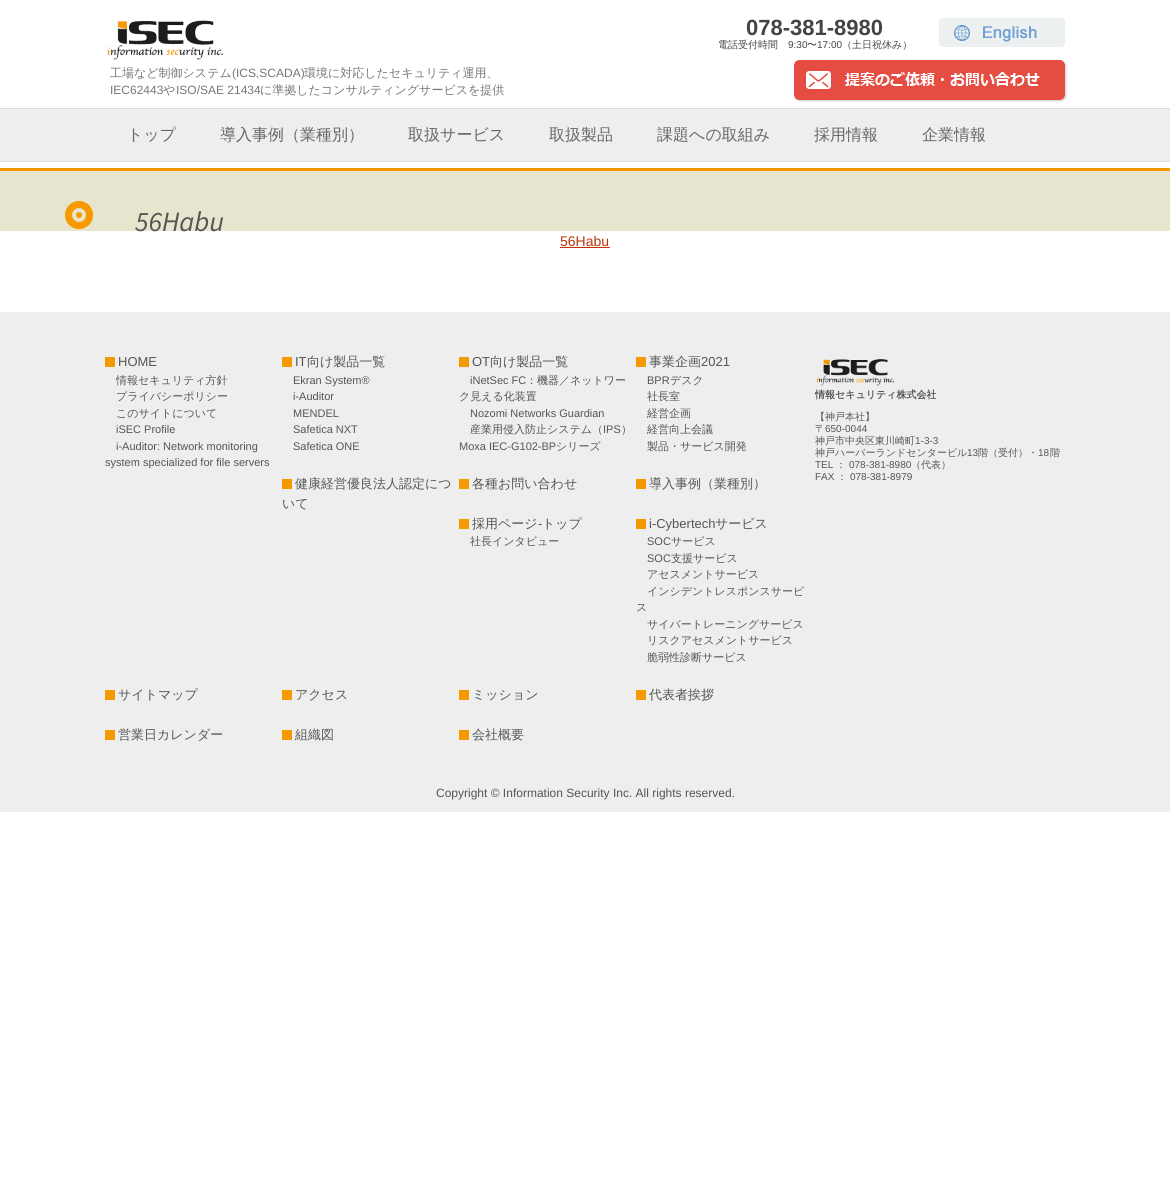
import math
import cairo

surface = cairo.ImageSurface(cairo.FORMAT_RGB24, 1170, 1194)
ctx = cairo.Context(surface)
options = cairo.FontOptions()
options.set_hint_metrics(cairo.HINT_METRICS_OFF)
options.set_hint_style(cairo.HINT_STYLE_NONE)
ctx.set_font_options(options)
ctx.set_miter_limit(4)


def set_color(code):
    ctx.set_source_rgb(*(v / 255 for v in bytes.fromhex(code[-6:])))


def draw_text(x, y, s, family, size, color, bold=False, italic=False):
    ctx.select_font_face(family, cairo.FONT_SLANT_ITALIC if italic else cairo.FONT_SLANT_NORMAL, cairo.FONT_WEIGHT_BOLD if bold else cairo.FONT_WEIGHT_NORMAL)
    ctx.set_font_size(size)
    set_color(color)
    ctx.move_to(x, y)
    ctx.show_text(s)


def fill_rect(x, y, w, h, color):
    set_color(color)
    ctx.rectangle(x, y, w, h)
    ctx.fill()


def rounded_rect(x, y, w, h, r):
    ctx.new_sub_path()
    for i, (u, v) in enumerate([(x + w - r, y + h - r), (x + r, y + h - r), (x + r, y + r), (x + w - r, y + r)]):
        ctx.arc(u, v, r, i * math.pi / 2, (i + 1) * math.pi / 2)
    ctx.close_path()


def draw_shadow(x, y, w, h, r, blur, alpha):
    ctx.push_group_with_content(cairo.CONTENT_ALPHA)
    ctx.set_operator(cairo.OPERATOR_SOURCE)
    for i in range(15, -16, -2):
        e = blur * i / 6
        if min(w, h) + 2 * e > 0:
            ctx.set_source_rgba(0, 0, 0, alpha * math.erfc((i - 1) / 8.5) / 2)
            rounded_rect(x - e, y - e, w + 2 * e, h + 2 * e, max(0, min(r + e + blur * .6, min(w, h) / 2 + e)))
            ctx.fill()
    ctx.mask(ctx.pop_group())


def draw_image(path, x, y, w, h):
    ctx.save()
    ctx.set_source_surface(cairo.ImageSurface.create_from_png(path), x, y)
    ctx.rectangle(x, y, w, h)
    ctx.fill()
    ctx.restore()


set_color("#ffffff")
ctx.paint()
fill_rect(0, 168, 1170, 3, "#f49700")
draw_text(746, 35, "078-381-8980", "Liberation Sans", 22, "#444444", bold=True)
draw_text(718, 48, "電話受付時間", "WenQuanYi Zen Hei Medium", 10, "#444444")
draw_text(788, 48, "9:30", "Liberation Sans", 10, "#444444")
draw_text(807, 48, "〜", "WenQuanYi Zen Hei Medium", 10, "#444444")
draw_text(817, 48, "17:00", "Liberation Sans", 10, "#444444")
draw_text(842, 48, "（土日祝休み）", "WenQuanYi Zen Hei Medium", 10, "#444444")
draw_image("assets/img1.png", 939, 18, 126, 29)
set_color("#5a5a5a")
draw_shadow(795, 61, 271, 40, 5, 1, 0.3)
draw_image("assets/img2.png", 794, 60, 271, 40)
draw_image("assets/img3.png", 107, 20, 116, 40)
draw_text(110, 77, "工場など制御システム", "WenQuanYi Zen Hei Medium", 12, "#777777")
draw_text(232, 77, "(ICS,SCADA)", "Liberation Sans", 12, "#777777")
draw_text(304, 77, "環境に対応したセキュリティ運用、", "WenQuanYi Zen Hei Medium", 12, "#777777")
draw_text(110, 94, "IEC62443", "Liberation Sans", 12, "#777777")
draw_text(163, 94, "や", "WenQuanYi Zen Hei Medium", 12, "#777777")
draw_text(176, 94, "ISO/SAE 21434", "Liberation Sans", 12, "#777777")
draw_text(260, 94, "に準拠したコンサルティングサービスを提供", "WenQuanYi Zen Hei Medium", 12, "#777777")
fill_rect(0, 109, 1170, 52, "#eeeeee")
fill_rect(0, 108, 1170, 1, "#dbdbdb")
fill_rect(0, 161, 1170, 1, "#dbdbdb")
draw_text(127, 140, "トップ", "WenQuanYi Zen Hei Medium", 16, "#666666")
draw_text(220, 140, "導入事例（業種別）", "WenQuanYi Zen Hei Medium", 16, "#666666")
draw_text(408, 140, "取扱サービス", "WenQuanYi Zen Hei Medium", 16, "#666666")
draw_text(549, 140, "取扱製品", "WenQuanYi Zen Hei Medium", 16, "#666666")
draw_text(657, 140, "課題への取組み", "WenQuanYi Zen Hei Medium", 16, "#666666")
draw_text(814, 140, "採用情報", "WenQuanYi Zen Hei Medium", 16, "#666666")
draw_text(922, 140, "企業情報", "WenQuanYi Zen Hei Medium", 16, "#666666")
fill_rect(0, 171, 1170, 60, "#e8e5ce")
draw_image("assets/img4.png", 65, 201, 29, 29)
draw_text(135, 231, "56Habu", "Source Sans Pro", 28, "#555555", italic=True)
draw_text(560, 246, "56Habu", "Liberation Sans", 14, "#bc360a")
fill_rect(560, 247, 50, 1, "#bc360a")
fill_rect(0, 312, 1170, 500, "#eeeeee")
draw_text(118, 366, "HOME", "Liberation Sans", 13, "#555555")
fill_rect(105, 357, 10, 10, "#f59900")
draw_text(116, 384, "情報セキュリティ方針", "WenQuanYi Zen Hei Medium", 11, "#555555")
draw_text(116, 400, "プライバシーポリシー", "WenQuanYi Zen Hei Medium", 11, "#555555")
draw_text(116, 417, "このサイトについて", "WenQuanYi Zen Hei Medium", 11, "#555555")
draw_text(116, 433, "iSEC Profile", "Liberation Sans", 11, "#555555")
draw_text(116, 450, "i-Auditor: Network monitoring", "Liberation Sans", 11, "#555555")
draw_text(105, 466, "system specialized for file servers", "Liberation Sans", 11, "#555555")
draw_text(295, 366, "IT", "Liberation Sans", 13, "#555555")
fill_rect(282, 357, 10, 10, "#f59900")
draw_text(307, 366, "向け製品一覧", "WenQuanYi Zen Hei Medium", 13, "#555555")
draw_text(293, 384, "Ekran System®", "Liberation Sans", 11, "#555555")
draw_text(293, 400, "i-Auditor", "Liberation Sans", 11, "#555555")
draw_text(293, 417, "MENDEL", "Liberation Sans", 11, "#555555")
draw_text(293, 433, "Safetica NXT", "Liberation Sans", 11, "#555555")
draw_text(293, 450, "Safetica ONE", "Liberation Sans", 11, "#555555")
draw_text(472, 366, "OT", "Liberation Sans", 13, "#555555")
fill_rect(459, 357, 10, 10, "#f59900")
draw_text(490, 366, "向け製品一覧", "WenQuanYi Zen Hei Medium", 13, "#555555")
draw_text(470, 384, "iNetSec FC", "Liberation Sans", 11, "#555555")
draw_text(526, 384, "：機器／ネットワー", "WenQuanYi Zen Hei Medium", 11, "#555555")
draw_text(459, 400, "ク見える化装置", "WenQuanYi Zen Hei Medium", 11, "#555555")
draw_text(470, 417, "Nozomi Networks Guardian", "Liberation Sans", 11, "#555555")
draw_text(470, 433, "産業用侵入防止システム（", "WenQuanYi Zen Hei Medium", 11, "#555555")
draw_text(603, 433, "IPS", "Liberation Sans", 11, "#555555")
draw_text(621, 433, "）", "WenQuanYi Zen Hei Medium", 11, "#555555")
draw_text(459, 450, "Moxa IEC-G102-BP", "Liberation Sans", 11, "#555555")
draw_text(556, 450, "シリーズ", "WenQuanYi Zen Hei Medium", 11, "#555555")
draw_text(649, 366, "事業企画", "WenQuanYi Zen Hei Medium", 13, "#555555")
fill_rect(636, 357, 10, 10, "#f59900")
draw_text(701, 366, "2021", "Liberation Sans", 13, "#555555")
draw_text(647, 384, "BPR", "Liberation Sans", 11, "#555555")
draw_text(670, 384, "デスク", "WenQuanYi Zen Hei Medium", 11, "#555555")
draw_text(647, 400, "社長室", "WenQuanYi Zen Hei Medium", 11, "#555555")
draw_text(647, 417, "経営企画", "WenQuanYi Zen Hei Medium", 11, "#555555")
draw_text(647, 433, "経営向上会議", "WenQuanYi Zen Hei Medium", 11, "#555555")
draw_text(647, 450, "製品・サービス開発", "WenQuanYi Zen Hei Medium", 11, "#555555")
draw_text(295, 488, "健康経営優良法人認定につ", "WenQuanYi Zen Hei Medium", 13, "#555555")
fill_rect(282, 479, 10, 10, "#f59900")
draw_text(282, 508, "いて", "WenQuanYi Zen Hei Medium", 13, "#555555")
draw_text(472, 488, "各種お問い合わせ", "WenQuanYi Zen Hei Medium", 13, "#555555")
fill_rect(459, 479, 10, 10, "#f59900")
draw_text(649, 488, "導入事例（業種別）", "WenQuanYi Zen Hei Medium", 13, "#555555")
fill_rect(636, 479, 10, 10, "#f59900")
draw_text(472, 528, "採用ページ", "WenQuanYi Zen Hei Medium", 13, "#555555")
fill_rect(459, 519, 10, 10, "#f59900")
draw_text(538, 528, "-", "Liberation Sans", 13, "#555555")
draw_text(542, 528, "トップ", "WenQuanYi Zen Hei Medium", 13, "#555555")
draw_text(470, 545, "社長インタビュー", "WenQuanYi Zen Hei Medium", 11, "#555555")
draw_text(649, 528, "i-Cybertech", "Liberation Sans", 13, "#555555")
fill_rect(636, 519, 10, 10, "#f59900")
draw_text(715, 528, "サービス", "WenQuanYi Zen Hei Medium", 13, "#555555")
draw_text(647, 545, "SOC", "Liberation Sans", 11, "#555555")
draw_text(671, 545, "サービス", "WenQuanYi Zen Hei Medium", 11, "#555555")
draw_text(647, 562, "SOC", "Liberation Sans", 11, "#555555")
draw_text(671, 562, "支援サービス", "WenQuanYi Zen Hei Medium", 11, "#555555")
draw_text(647, 578, "アセスメントサービス", "WenQuanYi Zen Hei Medium", 11, "#555555")
draw_text(647, 595, "インシデントレスポンスサービ", "WenQuanYi Zen Hei Medium", 11, "#555555")
draw_text(636, 611, "ス", "WenQuanYi Zen Hei Medium", 11, "#555555")
draw_text(647, 628, "サイバートレーニングサービス", "WenQuanYi Zen Hei Medium", 11, "#555555")
draw_text(647, 644, "リスクアセスメントサービス", "WenQuanYi Zen Hei Medium", 11, "#555555")
draw_text(647, 661, "脆弱性診断サービス", "WenQuanYi Zen Hei Medium", 11, "#555555")
draw_text(118, 699, "サイトマップ", "WenQuanYi Zen Hei Medium", 13, "#555555")
fill_rect(105, 690, 10, 10, "#f59900")
draw_text(295, 699, "アクセス", "WenQuanYi Zen Hei Medium", 13, "#555555")
fill_rect(282, 690, 10, 10, "#f59900")
draw_text(472, 699, "ミッション", "WenQuanYi Zen Hei Medium", 13, "#555555")
fill_rect(459, 690, 10, 10, "#f59900")
draw_text(649, 699, "代表者挨拶", "WenQuanYi Zen Hei Medium", 13, "#555555")
fill_rect(636, 690, 10, 10, "#f59900")
draw_text(118, 739, "営業日カレンダー", "WenQuanYi Zen Hei Medium", 13, "#555555")
fill_rect(105, 730, 10, 10, "#f59900")
draw_text(295, 739, "組織図", "WenQuanYi Zen Hei Medium", 13, "#555555")
fill_rect(282, 730, 10, 10, "#f59900")
draw_text(472, 739, "会社概要", "WenQuanYi Zen Hei Medium", 13, "#555555")
fill_rect(459, 730, 10, 10, "#f59900")
draw_image("assets/img5.png", 816, 359, 78, 27)
draw_text(815, 398, "情報セキュリティ株式会社", "WenQuanYi Zen Hei", 10, "#555555", bold=True)
draw_text(815, 420, "【神戸本社】", "WenQuanYi Zen Hei Medium", 10, "#555555")
draw_text(815, 432, "〒", "WenQuanYi Zen Hei Medium", 10, "#555555")
draw_text(825, 432, "650-0044", "Liberation Sans", 10, "#555555")
draw_text(815, 444, "神戸市中央区東川崎町", "WenQuanYi Zen Hei Medium", 10, "#555555")
draw_text(915, 444, "1-3-3", "Liberation Sans", 10, "#555555")
draw_text(815, 456, "神戸ハーバーランドセンタービル", "WenQuanYi Zen Hei Medium", 10, "#555555")
draw_text(967, 456, "13", "Liberation Sans", 10, "#555555")
draw_text(978, 456, "階（受付）・", "WenQuanYi Zen Hei Medium", 10, "#555555")
draw_text(1038, 456, "18", "Liberation Sans", 10, "#555555")
draw_text(1050, 456, "階", "WenQuanYi Zen Hei Medium", 10, "#555555")
draw_text(815, 468, "TEL", "Liberation Sans", 10, "#555555")
draw_text(836, 468, "：", "WenQuanYi Zen Hei Medium", 10, "#555555")
draw_text(849, 468, "078-381-8980", "Liberation Sans", 10, "#555555")
draw_text(911, 468, "（代表）", "WenQuanYi Zen Hei Medium", 10, "#555555")
draw_text(815, 480, "FAX", "Liberation Sans", 10, "#555555")
draw_text(837, 480, "：", "WenQuanYi Zen Hei Medium", 10, "#555555")
draw_text(850, 480, "078-381-8979", "Liberation Sans", 10, "#555555")
draw_text(436, 797, "Copyright © Information Security Inc. All rights reserved.", "Liberation Sans", 12, "#555555")
surface.write_to_png("output.png")
